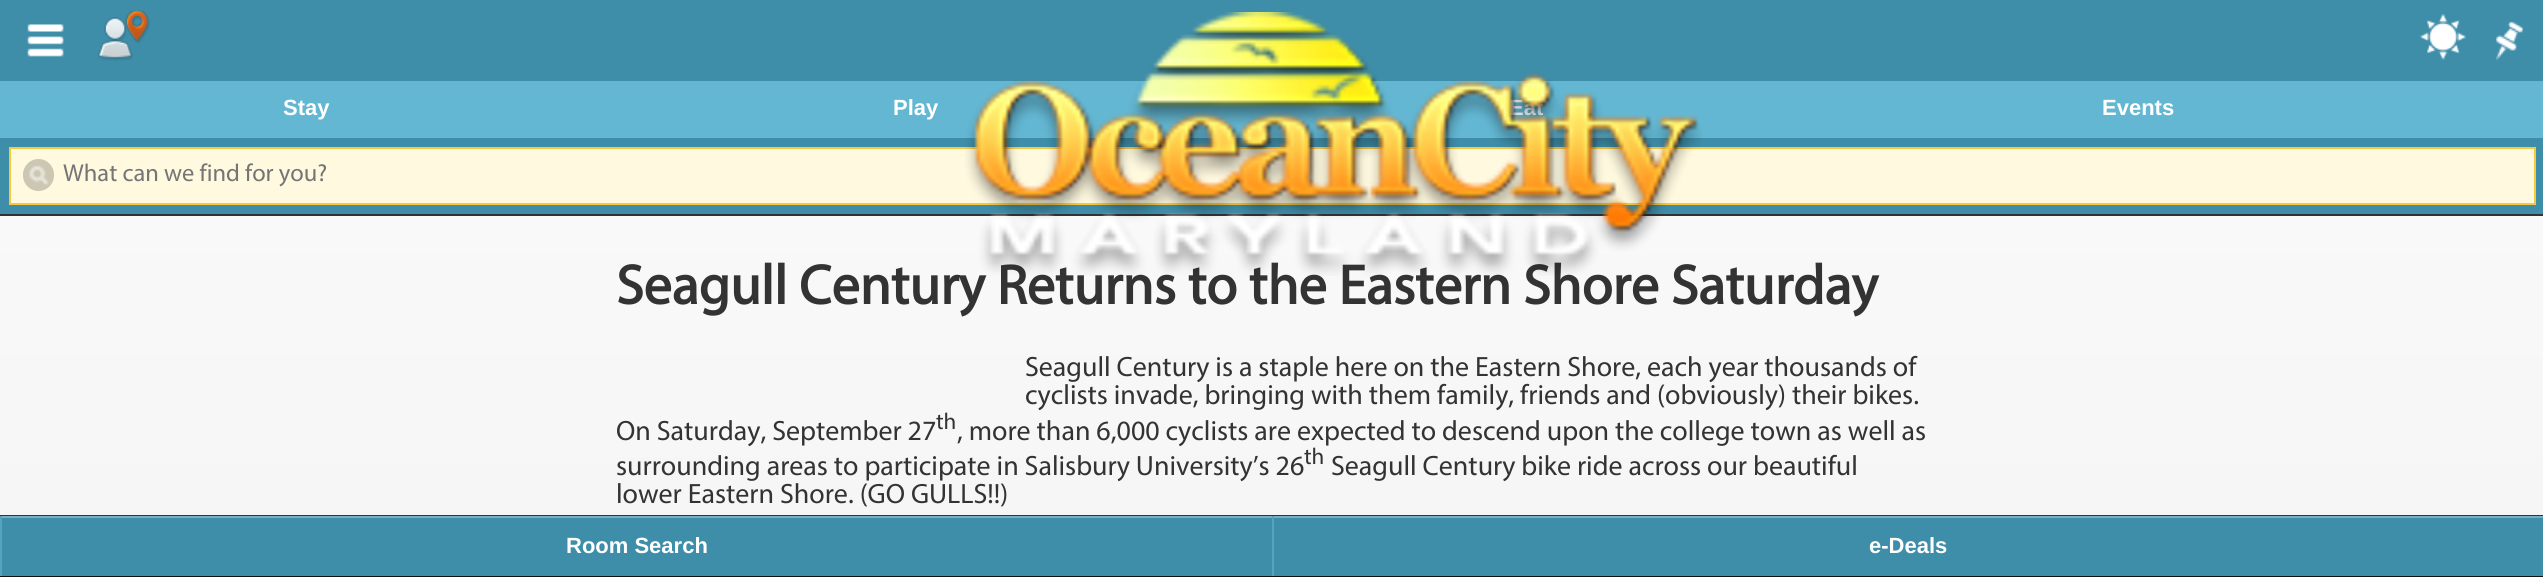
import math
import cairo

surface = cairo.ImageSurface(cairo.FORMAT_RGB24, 2543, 577)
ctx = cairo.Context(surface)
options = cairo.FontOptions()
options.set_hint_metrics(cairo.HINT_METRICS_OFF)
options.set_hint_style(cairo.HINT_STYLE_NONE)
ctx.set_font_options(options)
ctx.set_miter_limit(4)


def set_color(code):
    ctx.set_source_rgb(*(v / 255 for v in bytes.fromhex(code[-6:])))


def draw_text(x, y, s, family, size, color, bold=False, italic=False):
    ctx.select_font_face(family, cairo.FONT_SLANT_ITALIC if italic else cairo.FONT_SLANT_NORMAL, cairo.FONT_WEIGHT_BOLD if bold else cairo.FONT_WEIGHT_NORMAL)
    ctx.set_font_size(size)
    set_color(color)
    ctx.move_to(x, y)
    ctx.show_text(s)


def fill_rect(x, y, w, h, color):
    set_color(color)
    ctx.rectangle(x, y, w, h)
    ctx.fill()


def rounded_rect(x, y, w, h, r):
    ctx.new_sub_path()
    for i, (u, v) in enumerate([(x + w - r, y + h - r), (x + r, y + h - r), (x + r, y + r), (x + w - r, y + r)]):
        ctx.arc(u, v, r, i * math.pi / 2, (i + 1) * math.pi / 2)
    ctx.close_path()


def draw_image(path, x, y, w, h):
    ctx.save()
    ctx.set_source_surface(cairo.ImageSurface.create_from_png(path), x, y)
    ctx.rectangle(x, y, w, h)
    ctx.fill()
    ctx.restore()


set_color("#ffffff")
ctx.paint()
fill_rect(0, 0, 2543, 214, "#3e8da9")
fill_rect(0, 214, 2543, 2, "#333333")
draw_image("assets/img1.png", 27, 24, 37, 33)
draw_image("assets/img2.png", 98, 10, 52, 51)
draw_image("assets/img3.png", 2420, 14, 46, 46)
draw_image("assets/img4.png", 2496, 21, 27, 40)
fill_rect(0, 81, 2543, 57, "#63b7d3")
draw_text(1509, 115, "Eat", "Liberation Sans", 22, "#ffffff", bold=True)
set_color("#fff9df")
ctx.rectangle(10, 148, 2525, 56)
ctx.fill_preserve()
set_color("#f7c942")
ctx.stroke()
gradient = cairo.LinearGradient(1272, 215, 1272, 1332)
gradient.add_color_stop_rgba(0, 0.976, 0.976, 0.976, 1)
gradient.add_color_stop_rgba(1, 0.933, 0.933, 0.933, 1)
ctx.set_source(gradient)
ctx.rectangle(0, 216, 2543, 299)
ctx.fill()
draw_text(616, 304, "Seagull Century Returns to the Eastern Shore Saturday", "Myriad", 56, "#333333", bold=True)
draw_image("assets/img5.png", 965, 12, 737, 264)
draw_text(283, 115, "Stay", "Liberation Sans", 22, "#ffffff", bold=True)
draw_text(893, 115, "Play", "Liberation Sans", 22, "#ffffff", bold=True)
draw_text(2102, 115, "Events", "Liberation Sans", 22, "#ffffff", bold=True)
set_color("#ccc7b3")
rounded_rect(23, 159, 31, 32, 15.5)
ctx.fill()
draw_image("assets/img6.png", 29, 165, 20, 21)
draw_text(63, 181, "What can we find for you?", "Myriad", 24.5, "#757575")
draw_text(1025, 376, "Seagull Century is a staple here on the Eastern Shore, each year thousands of", "Myriad", 28, "#333333")
draw_text(1025, 404, "cyclists invade, bringing with them family, friends and (obviously) their bikes.", "Myriad", 28, "#333333")
draw_text(616, 440, "On Saturday, September 27", "Myriad", 28, "#333333")
draw_text(936, 429, "th", "Myriad", 23, "#333333")
draw_text(957, 440, ", more than 6,000 cyclists are expected to descend upon the college town as well as", "Myriad", 28, "#333333")
draw_text(616, 475, "surrounding areas to participate in Salisbury University’s 26", "Myriad", 28, "#333333")
draw_text(1304, 464, "th", "Myriad", 23, "#333333")
draw_text(1331, 475, "Seagull Century bike ride across our beautiful", "Myriad", 28, "#333333")
draw_text(616, 503, "lower Eastern Shore. (GO GULLS!!)", "Myriad", 28, "#333333")
gradient = cairo.LinearGradient(1272, 516, 1272, 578)
gradient.add_color_stop_rgba(0, 0.235, 0.235, 0.235, 1)
gradient.add_color_stop_rgba(1, 0.067, 0.067, 0.067, 1)
ctx.set_source(gradient)
ctx.rectangle(0, 576, 2543, 1)
ctx.fill()
fill_rect(0, 515, 2543, 1, "#333333")
fill_rect(2, 518, 1270, 58, "#3e8da9")
fill_rect(0, 516, 2, 60, "#55a3bf")
fill_rect(2, 516, 1270, 2, "#78afc3")
draw_text(566, 553, "Room Search", "Liberation Sans", 22, "#ffffff", bold=True)
fill_rect(1274, 518, 1269, 58, "#3e8da9")
fill_rect(1272, 516, 2, 60, "#55a3bf")
fill_rect(1274, 516, 1269, 2, "#78afc3")
draw_text(1869, 553, "e-Deals", "Liberation Sans", 22, "#ffffff", bold=True)
surface.write_to_png("output.png")
